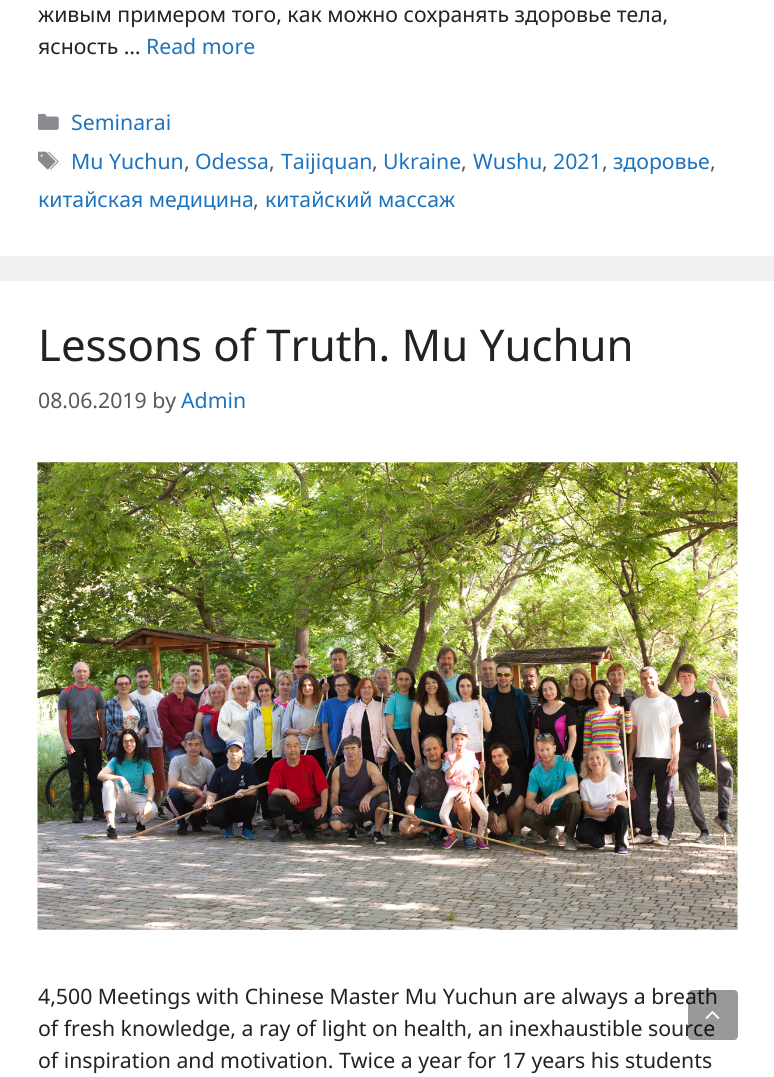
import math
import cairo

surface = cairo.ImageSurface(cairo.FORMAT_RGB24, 774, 1077)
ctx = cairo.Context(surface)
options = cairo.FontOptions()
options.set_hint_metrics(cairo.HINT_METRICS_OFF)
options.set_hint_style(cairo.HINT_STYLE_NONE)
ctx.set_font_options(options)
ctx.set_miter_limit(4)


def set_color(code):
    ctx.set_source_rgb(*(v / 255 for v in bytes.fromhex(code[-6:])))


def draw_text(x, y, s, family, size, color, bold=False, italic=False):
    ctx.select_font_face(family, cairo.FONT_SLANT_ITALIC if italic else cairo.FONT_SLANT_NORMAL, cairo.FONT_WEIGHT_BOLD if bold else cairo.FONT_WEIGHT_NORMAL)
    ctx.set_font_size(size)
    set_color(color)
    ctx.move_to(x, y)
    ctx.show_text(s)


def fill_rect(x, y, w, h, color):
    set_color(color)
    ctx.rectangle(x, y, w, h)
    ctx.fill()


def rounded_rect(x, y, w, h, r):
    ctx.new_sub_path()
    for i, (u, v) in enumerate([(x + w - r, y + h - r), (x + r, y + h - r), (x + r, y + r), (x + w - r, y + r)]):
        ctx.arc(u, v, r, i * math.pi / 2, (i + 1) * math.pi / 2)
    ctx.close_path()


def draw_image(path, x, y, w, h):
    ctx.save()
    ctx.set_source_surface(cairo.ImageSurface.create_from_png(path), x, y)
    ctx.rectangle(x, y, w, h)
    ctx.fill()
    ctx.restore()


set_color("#f0f0f0")
ctx.paint()
fill_rect(0, 0, 774, 256, "#ffffff")
draw_text(38, 22, "живым примером того, как можно сохранять здоровье тела,", "Noto Sans", 21.25, "#222222")
draw_text(38, 54, "ясность …", "Noto Sans", 21.25, "#222222")
draw_text(146, 54, "Read more", "Noto Sans", 21.25, "#1e73be")
draw_image("assets/img1.png", 38, 113, 21, 17)
draw_text(71, 130, "Seminarai", "Noto Sans", 21.25, "#1e73be")
draw_image("assets/img2.png", 38, 151, 21, 19)
draw_text(71, 169, "Mu Yuchun", "Noto Sans", 21.25, "#1e73be")
draw_text(184, 169, ",", "Noto Sans", 21.25, "#575760")
draw_text(195, 169, "Odessa", "Noto Sans", 21.25, "#1e73be")
draw_text(269, 169, ",", "Noto Sans", 21.25, "#575760")
draw_text(281, 169, "Taijiquan", "Noto Sans", 21.25, "#1e73be")
draw_text(372, 169, ",", "Noto Sans", 21.25, "#575760")
draw_text(383, 169, "Ukraine", "Noto Sans", 21.25, "#1e73be")
draw_text(461, 169, ",", "Noto Sans", 21.25, "#575760")
draw_text(473, 169, "Wushu", "Noto Sans", 21.25, "#1e73be")
draw_text(542, 169, ",", "Noto Sans", 21.25, "#575760")
draw_text(553, 169, "2021", "Noto Sans", 21.25, "#1e73be")
draw_text(602, 169, ",", "Noto Sans", 21.25, "#575760")
draw_text(613, 169, "здоровье", "Noto Sans", 21.25, "#1e73be")
draw_text(710, 169, ",", "Noto Sans", 21.25, "#575760")
draw_text(38, 207, "китайская медицина", "Noto Sans", 21.25, "#1e73be")
draw_text(253, 207, ",", "Noto Sans", 21.25, "#575760")
draw_text(265, 207, "китайский массаж", "Noto Sans", 21.25, "#1e73be")
fill_rect(0, 281, 774, 796, "#ffffff")
draw_text(38, 361, "Lessons of Truth. Mu Yuchun", "Noto Sans", 43.75, "#222222")
draw_text(38, 408, "08.06.2019 by", "Noto Sans", 21.25, "#575760")
draw_text(181, 408, "Admin", "Noto Sans", 21.25, "#1e73be")
draw_image("assets/img3.png", 37, 462, 701, 468)
draw_text(38, 1004, "4,500 Meetings with Chinese Master Mu Yuchun are always a breath", "Noto Sans", 21.25, "#222222")
draw_text(38, 1036, "of fresh knowledge, a ray of light on health, an inexhaustible source", "Noto Sans", 21.25, "#222222")
draw_text(38, 1068, "of inspiration and motivation. Twice a year for 17 years his students", "Noto Sans", 21.25, "#222222")
ctx.set_source_rgba(0, 0, 0, 0.4)
rounded_rect(688, 990, 50, 50, 4)
ctx.fill()
draw_image("assets/img4.png", 705, 1011, 15, 8)
surface.write_to_png("output.png")
